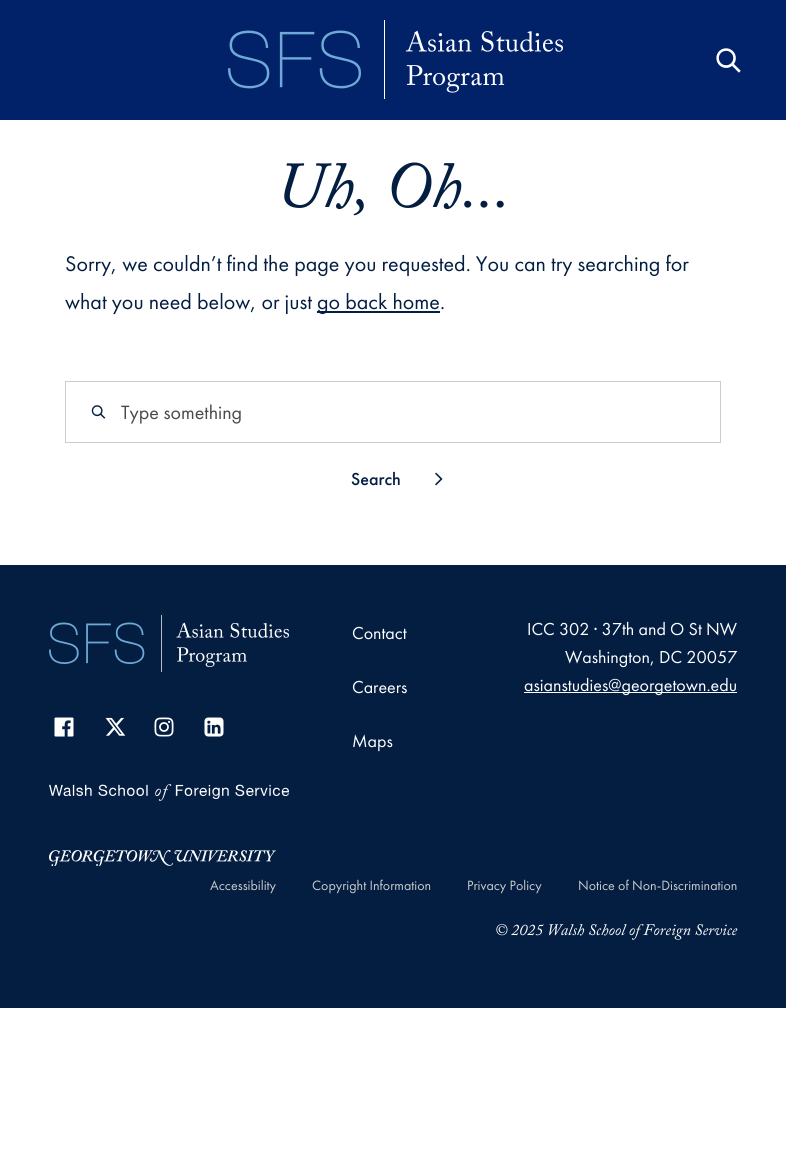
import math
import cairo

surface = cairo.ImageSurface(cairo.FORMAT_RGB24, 786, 1156)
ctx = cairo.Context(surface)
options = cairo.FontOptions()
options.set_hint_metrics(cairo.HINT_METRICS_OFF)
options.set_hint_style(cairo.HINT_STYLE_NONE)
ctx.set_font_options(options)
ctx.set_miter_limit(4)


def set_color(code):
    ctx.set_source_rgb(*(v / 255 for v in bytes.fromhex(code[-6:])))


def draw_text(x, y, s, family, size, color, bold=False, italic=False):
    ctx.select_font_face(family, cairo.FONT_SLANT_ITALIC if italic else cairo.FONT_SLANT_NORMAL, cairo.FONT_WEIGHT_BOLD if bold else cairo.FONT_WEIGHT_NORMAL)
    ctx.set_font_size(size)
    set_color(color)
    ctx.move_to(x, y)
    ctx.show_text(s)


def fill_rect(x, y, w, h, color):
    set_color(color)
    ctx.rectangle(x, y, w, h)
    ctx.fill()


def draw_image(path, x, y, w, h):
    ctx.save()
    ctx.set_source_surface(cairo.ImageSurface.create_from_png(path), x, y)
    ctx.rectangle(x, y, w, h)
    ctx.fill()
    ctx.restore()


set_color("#ffffff")
ctx.paint()
fill_rect(0, 0, 786, 120, "#012169")
draw_image("assets/img1.png", 228, 20, 335, 79)
draw_image("assets/img2.png", 716, 48, 25, 25)
draw_text(276, 207, "Uh, Oh...", "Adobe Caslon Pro", 65, "#041e42", italic=True)
draw_text(65, 271, "Sorry, we couldn’t find the page you requested. You can try searching for", "Futura PT", 22, "#041e42")
draw_text(65, 309, "what you need below, or just", "Futura PT", 22, "#041e42")
fill_rect(317, 311, 123, 2, "#041e42")
draw_text(317, 309, "go back home.", "Futura PT", 22, "#041e42")
ctx.rectangle(65.5, 381.5, 655, 61)
set_color("#cccccc")
ctx.set_line_width(1)
ctx.stroke()
draw_image("assets/img3.png", 91, 405, 15, 14)
draw_text(121, 419, "Type something", "Futura PT", 20, "#4a4a4a")
draw_image("assets/img4.png", 435, 472, 8, 14)
draw_text(351, 485, "Search", "Futura PT Medium", 18, "#041e42")
fill_rect(0, 565, 786, 443, "#041e42")
draw_image("assets/img5.png", 49, 615, 240, 57)
draw_image("assets/img6.png", 54, 717, 20, 20)
draw_image("assets/img7.png", 105, 717, 21, 19)
draw_image("assets/img8.png", 154, 717, 20, 20)
draw_image("assets/img9.png", 204, 717, 20, 20)
draw_image("assets/img10.png", 49, 784, 240, 17)
draw_image("assets/img11.png", 49, 850, 227, 16)
draw_text(352, 639, "Contact", "Futura PT", 18, "#ffffff")
draw_text(352, 693, "Careers", "Futura PT", 18, "#ffffff")
draw_text(352, 747, "Maps", "Futura PT", 18, "#ffffff")
draw_text(527, 635, "ICC 302 · 37th and O St NW", "Futura PT", 18, "#ffffff")
draw_text(565, 663, "Washington, DC 20057", "Futura PT", 18, "#ffffff")
fill_rect(524, 692, 213, 1, "#ffffff")
draw_text(524, 691, "asianstudies@georgetown.edu", "Futura PT", 18, "#ffffff")
draw_text(210, 890, "Accessibility", "Futura PT", 14, "#cccccc")
draw_text(312, 890, "Copyright Information", "Futura PT", 14, "#cccccc")
draw_text(467, 890, "Privacy Policy", "Futura PT", 14, "#cccccc")
draw_text(578, 890, "Notice of Non-Discrimination", "Futura PT", 14, "#cccccc")
draw_text(495, 935, "© 2025 Walsh School of Foreign Service", "Adobe Caslon Pro", 16, "#ffffff", italic=True)
surface.write_to_png("output.png")
